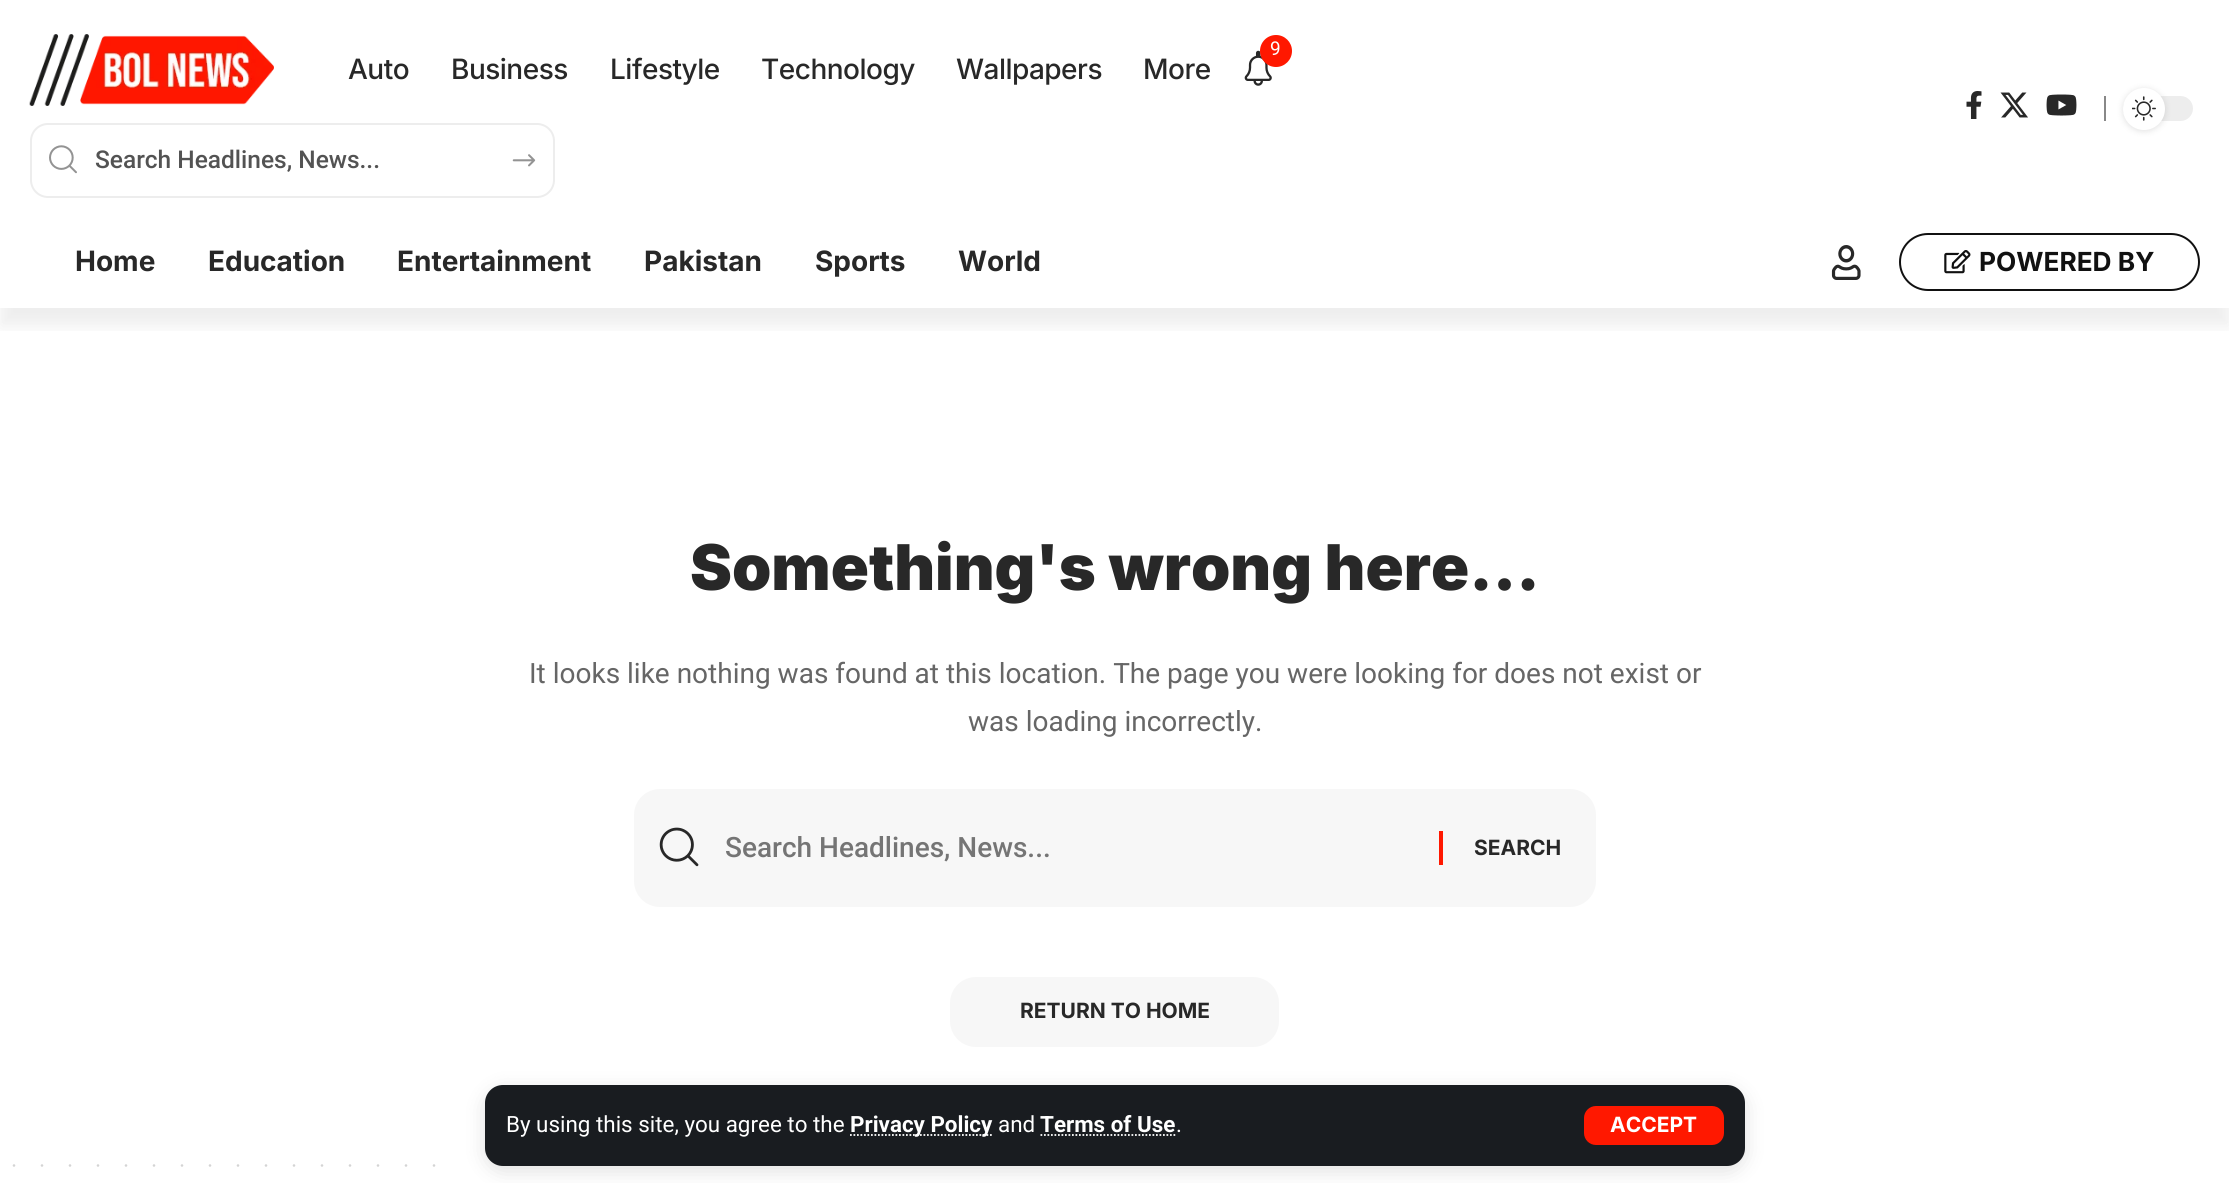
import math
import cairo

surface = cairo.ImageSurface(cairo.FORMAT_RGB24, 2229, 1183)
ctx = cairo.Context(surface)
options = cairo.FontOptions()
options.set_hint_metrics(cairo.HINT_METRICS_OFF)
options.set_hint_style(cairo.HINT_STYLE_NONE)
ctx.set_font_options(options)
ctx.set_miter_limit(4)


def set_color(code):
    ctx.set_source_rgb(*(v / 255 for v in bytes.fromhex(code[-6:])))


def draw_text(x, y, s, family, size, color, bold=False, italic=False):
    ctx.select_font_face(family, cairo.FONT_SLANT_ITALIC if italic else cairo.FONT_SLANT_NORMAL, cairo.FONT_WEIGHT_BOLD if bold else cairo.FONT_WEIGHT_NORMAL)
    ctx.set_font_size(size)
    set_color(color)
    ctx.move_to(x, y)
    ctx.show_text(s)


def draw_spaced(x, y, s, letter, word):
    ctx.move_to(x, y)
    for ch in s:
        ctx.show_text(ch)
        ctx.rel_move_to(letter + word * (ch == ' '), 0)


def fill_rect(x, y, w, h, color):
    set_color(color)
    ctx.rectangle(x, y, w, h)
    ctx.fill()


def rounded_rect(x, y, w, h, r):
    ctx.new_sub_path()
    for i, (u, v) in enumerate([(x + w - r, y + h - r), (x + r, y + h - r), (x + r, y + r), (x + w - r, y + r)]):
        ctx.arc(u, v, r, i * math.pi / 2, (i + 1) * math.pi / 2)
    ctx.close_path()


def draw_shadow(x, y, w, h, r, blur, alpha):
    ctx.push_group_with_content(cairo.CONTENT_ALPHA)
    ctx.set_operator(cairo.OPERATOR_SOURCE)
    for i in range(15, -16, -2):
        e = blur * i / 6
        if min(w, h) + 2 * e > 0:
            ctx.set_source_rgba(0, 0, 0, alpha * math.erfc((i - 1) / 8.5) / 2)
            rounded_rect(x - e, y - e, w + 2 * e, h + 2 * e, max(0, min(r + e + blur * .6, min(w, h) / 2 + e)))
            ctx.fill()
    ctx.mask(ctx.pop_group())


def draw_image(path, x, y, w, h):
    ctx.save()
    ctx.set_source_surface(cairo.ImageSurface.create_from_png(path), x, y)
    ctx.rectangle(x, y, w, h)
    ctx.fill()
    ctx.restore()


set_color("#ffffff")
ctx.paint()
draw_image("assets/img1.png", 29, 34, 245, 72)
draw_image("assets/img2.png", 1244, 50, 28, 36)
set_color("#ff1800")
ctx.arc(1276, 51, 16, 0, 2 * math.pi)
ctx.fill()
draw_text(1270, 55, "9", "Roboto", 19, "#ffffff")
ctx.select_font_face("Inter Medium")
ctx.set_font_size(28)
set_color("#282828")
draw_spaced(348, 79, "Auto", -0.5, 0)
draw_spaced(451, 79, "Business", -0.5, 0)
draw_spaced(610, 79, "Lifestyle", -0.5, 0)
draw_spaced(761, 79, "Technology", -0.5, 0)
draw_spaced(956, 79, "Wallpapers", -0.5, 0)
draw_spaced(1143, 79, "More", -0.5, 0)
rounded_rect(31, 124, 523, 73, 17)
set_color("#ededed")
ctx.stroke()
draw_image("assets/img3.png", 49, 145, 28, 29)
draw_text(95, 168, "Search Headlines, News...", "Roboto Medium", 24.5, "#535353")
draw_image("assets/img4.png", 512, 154, 24, 13)
draw_image("assets/img5.png", 1966, 91, 16, 28)
draw_image("assets/img6.png", 2000, 92, 28, 26)
draw_image("assets/img7.png", 2046, 94, 31, 22)
fill_rect(2104, 96, 2, 25, "#888888")
set_color("#ededed")
rounded_rect(2123, 96, 70, 25, 12.5)
ctx.fill()
set_color("#000000")
draw_shadow(2123, 89, 42, 42, 21, 3.5, 0.12)
set_color("#ffffff")
ctx.arc(2144, 109, 21, 0, 2 * math.pi)
ctx.fill()
draw_image("assets/img8.png", 2132, 96, 24, 25)
ctx.save()
ctx.rectangle(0, 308, 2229, 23)
ctx.clip()
set_color("#000000")
draw_shadow(0, 233, 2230, 93, 0, 9, 0.07)
ctx.restore()
draw_text(75, 271, "Home", "Inter", 28, "#282828", bold=True)
draw_text(208, 271, "Education", "Inter", 28, "#282828", bold=True)
draw_text(397, 271, "Entertainment", "Inter", 28, "#282828", bold=True)
draw_text(644, 271, "Pakistan", "Inter", 28, "#282828", bold=True)
draw_text(815, 271, "Sports", "Inter", 28, "#282828", bold=True)
draw_text(958, 271, "World", "Inter", 28, "#282828", bold=True)
draw_image("assets/img9.png", 1831, 245, 30, 35)
rounded_rect(1900, 234, 299, 56, 28)
set_color("#111111")
ctx.stroke()
draw_image("assets/img10.png", 1944, 250, 27, 24)
draw_text(1979, 271, "POWERED BY", "Inter", 26.25, "#111111", bold=True)
set_color("#000000")
draw_shadow(485, 1090, 1260, 81, 18, 10.5, 0.12)
set_color("#191c20")
rounded_rect(485, 1085, 1260, 81, 18)
ctx.fill()
draw_text(506, 1132, "By using this site, you agree to the", "Roboto", 22.4, "#ffffff")
ctx.new_path()
ctx.move_to(850, 1135)
ctx.line_to(992, 1135)
ctx.set_line_width(1.8)
ctx.set_dash([1.75, 1.75])
ctx.stroke()
draw_text(850, 1132, "Privacy Policy", "Roboto", 22.4, "#ffffff", bold=True)
draw_text(998, 1132, "and", "Roboto", 22.4, "#ffffff")
draw_text(1040, 1132, "Terms of Use", "Roboto", 22.4, "#ffffff", bold=True)
ctx.new_path()
ctx.move_to(1040.5, 1135)
ctx.line_to(1175.5, 1135)
ctx.stroke()
draw_text(1176, 1132, ".", "Roboto", 22.4, "#ffffff")
set_color("#ff1800")
rounded_rect(1584, 1106, 140, 39, 12)
ctx.fill()
draw_text(1610, 1132, "ACCEPT", "Inter", 21, "#ffffff", bold=True)
draw_text(690, 590, "Something's wrong here...", "Inter Black", 63, "#282828")
draw_text(529, 683, "It looks like nothing was found at this location. The page you were looking for does not exist or", "Roboto", 28, "#666666")
draw_text(968, 731, "was loading incorrectly.", "Roboto", 28, "#666666")
set_color("#f7f7f7")
rounded_rect(634, 789, 962, 118, 26)
ctx.fill()
draw_image("assets/img11.png", 659, 827, 40, 40)
draw_text(725, 857, "Search Headlines, News...", "Roboto Medium", 28, "#757575")
fill_rect(1439, 831, 4, 34, "#ff1800")
draw_text(1474, 855, "SEARCH", "Inter", 21, "#282828", bold=True)
set_color("#f7f7f7")
rounded_rect(950, 977, 329, 70, 26)
ctx.fill()
draw_text(1020, 1018, "RETURN TO HOME", "Inter", 21, "#282828", bold=True)
ctx.new_path()
ctx.move_to(14, 1165.5)
ctx.line_to(434.3, 1165.5)
set_color("#d4d4d4")
ctx.set_line_width(2.6)
ctx.set_line_cap(cairo.LINE_CAP_ROUND)
ctx.set_dash([0, 28])
ctx.stroke()
surface.write_to_png("output.png")
